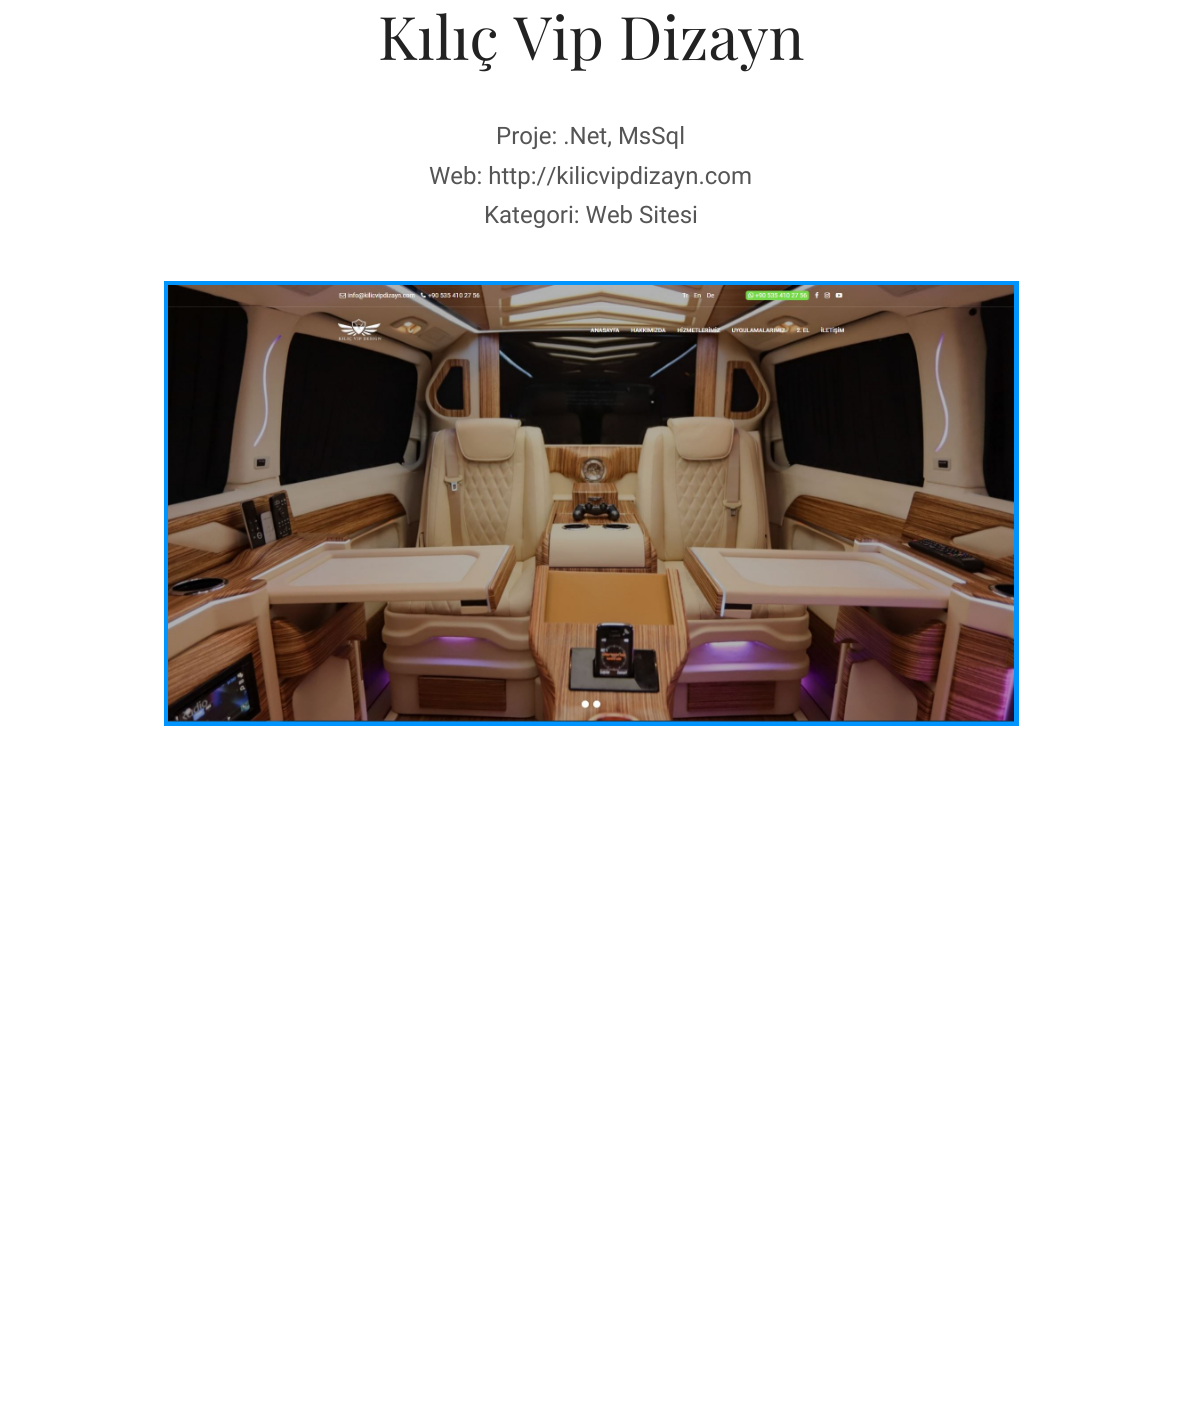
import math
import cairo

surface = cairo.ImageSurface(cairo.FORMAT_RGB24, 1182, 1427)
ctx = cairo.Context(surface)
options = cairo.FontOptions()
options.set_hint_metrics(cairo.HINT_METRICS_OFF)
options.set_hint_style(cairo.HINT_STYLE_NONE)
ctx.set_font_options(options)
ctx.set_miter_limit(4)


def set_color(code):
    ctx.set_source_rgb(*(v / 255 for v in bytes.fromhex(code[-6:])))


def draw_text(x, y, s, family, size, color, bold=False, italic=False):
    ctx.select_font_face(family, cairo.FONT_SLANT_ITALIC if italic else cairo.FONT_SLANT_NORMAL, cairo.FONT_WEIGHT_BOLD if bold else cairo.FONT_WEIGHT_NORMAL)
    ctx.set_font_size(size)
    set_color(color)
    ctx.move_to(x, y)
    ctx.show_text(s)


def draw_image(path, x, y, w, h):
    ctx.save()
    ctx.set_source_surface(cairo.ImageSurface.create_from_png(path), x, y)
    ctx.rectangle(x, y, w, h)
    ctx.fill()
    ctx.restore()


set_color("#ffffff")
ctx.paint()
draw_text(378, 60, "Kılıç Vip Dizayn", "Playfair Display", 60, "#222222")
draw_text(496, 144, "Proje: .Net, MsSql", "Roboto", 24, "#555555")
draw_text(429, 184, "Web: http://kilicvipdizayn.com", "Roboto", 24, "#555555")
draw_text(484, 223, "Kategori: Web Sitesi", "Roboto", 24, "#555555")
ctx.rectangle(166.5, 283.5, 850, 440)
set_color("#0094ff")
ctx.set_line_width(5)
ctx.stroke()
draw_image("assets/img1.png", 168, 285, 846, 437)
surface.write_to_png("output.png")
